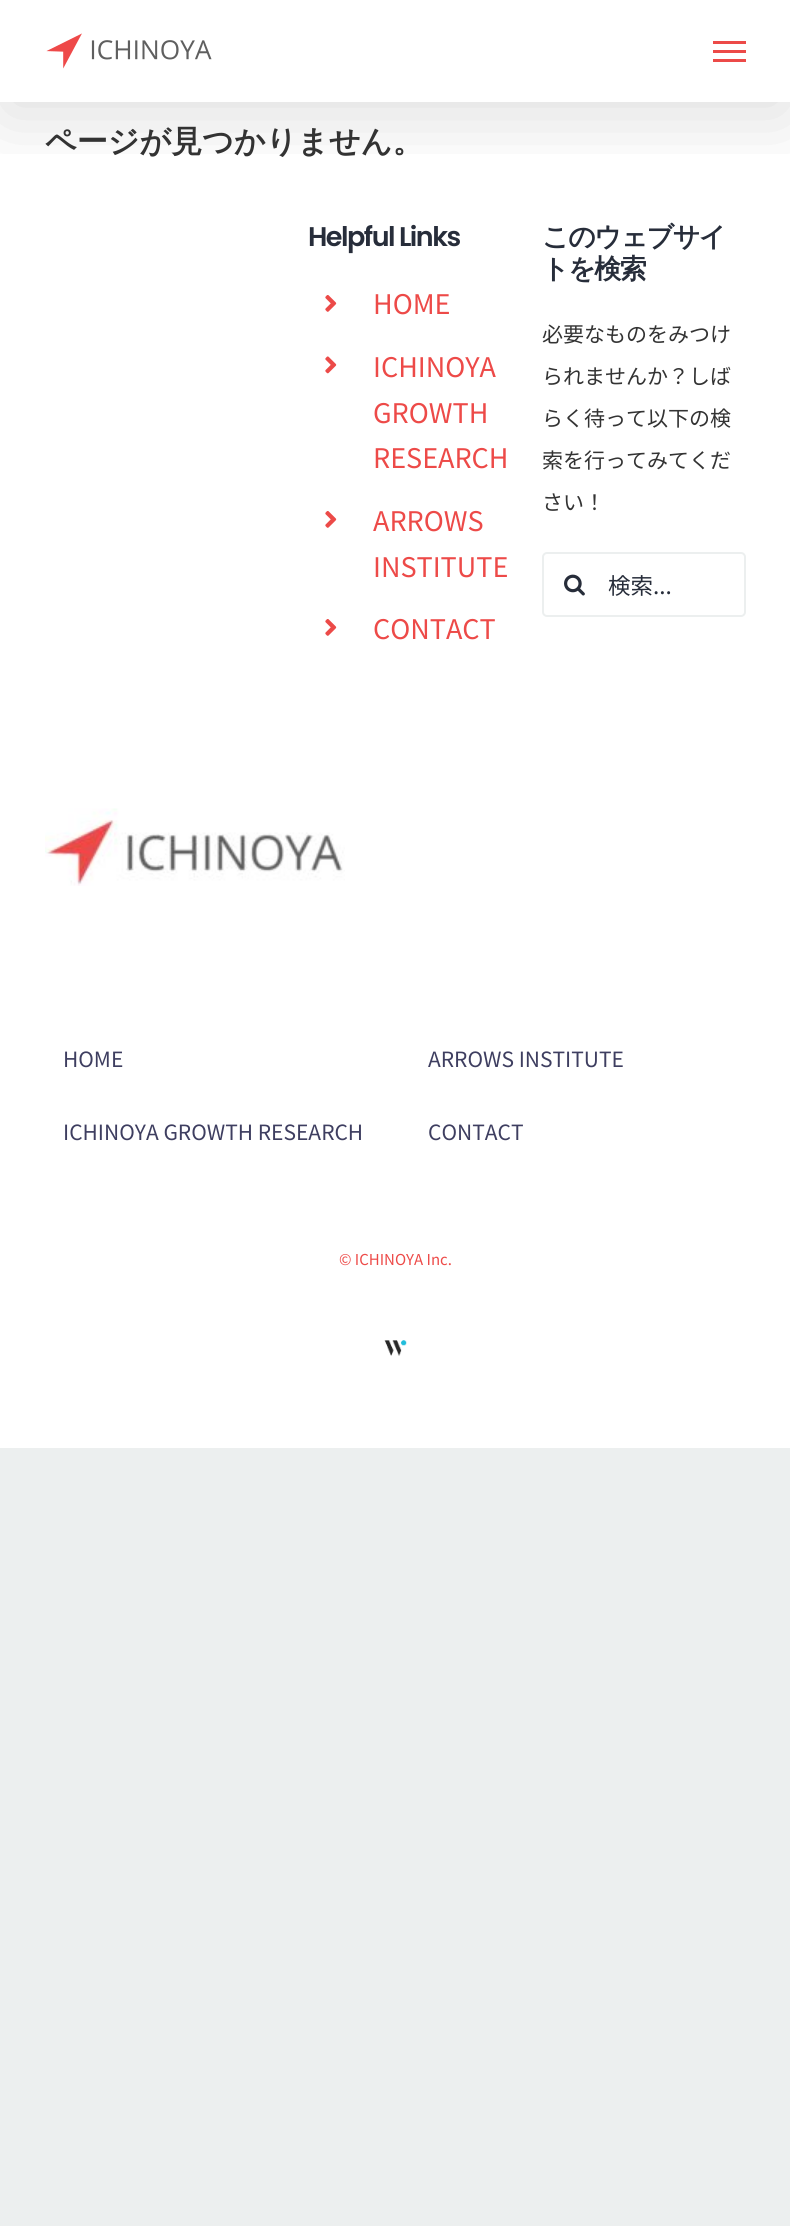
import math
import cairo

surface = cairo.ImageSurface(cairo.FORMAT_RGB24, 790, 2226)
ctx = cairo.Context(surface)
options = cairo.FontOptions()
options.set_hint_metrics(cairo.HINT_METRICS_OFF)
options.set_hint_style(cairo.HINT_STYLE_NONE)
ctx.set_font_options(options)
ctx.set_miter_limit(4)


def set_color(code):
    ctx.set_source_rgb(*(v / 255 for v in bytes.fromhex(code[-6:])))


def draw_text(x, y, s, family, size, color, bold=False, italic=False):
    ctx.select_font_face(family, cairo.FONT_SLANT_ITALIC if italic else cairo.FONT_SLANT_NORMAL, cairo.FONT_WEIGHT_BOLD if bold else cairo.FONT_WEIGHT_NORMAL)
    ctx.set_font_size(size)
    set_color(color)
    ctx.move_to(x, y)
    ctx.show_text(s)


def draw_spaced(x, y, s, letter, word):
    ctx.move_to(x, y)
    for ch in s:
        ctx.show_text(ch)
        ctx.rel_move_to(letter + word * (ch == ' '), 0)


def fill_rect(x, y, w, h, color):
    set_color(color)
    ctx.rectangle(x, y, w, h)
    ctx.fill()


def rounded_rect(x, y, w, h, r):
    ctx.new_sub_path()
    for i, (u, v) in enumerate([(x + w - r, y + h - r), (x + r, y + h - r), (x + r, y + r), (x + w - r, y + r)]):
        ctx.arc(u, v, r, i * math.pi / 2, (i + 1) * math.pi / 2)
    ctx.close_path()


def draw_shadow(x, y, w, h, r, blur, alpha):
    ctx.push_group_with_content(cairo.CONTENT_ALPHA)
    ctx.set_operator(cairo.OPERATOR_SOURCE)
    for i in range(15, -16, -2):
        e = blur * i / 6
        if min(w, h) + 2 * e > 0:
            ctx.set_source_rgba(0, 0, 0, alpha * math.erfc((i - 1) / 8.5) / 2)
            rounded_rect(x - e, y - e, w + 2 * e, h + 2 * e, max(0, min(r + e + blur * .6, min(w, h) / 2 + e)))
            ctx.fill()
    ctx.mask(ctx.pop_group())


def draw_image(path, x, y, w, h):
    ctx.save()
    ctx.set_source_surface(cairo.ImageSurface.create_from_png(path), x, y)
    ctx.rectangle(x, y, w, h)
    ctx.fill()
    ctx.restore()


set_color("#ecefef")
ctx.paint()
fill_rect(0, 0, 790, 1448, "#ffffff")
ctx.save()
ctx.rectangle(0, 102, 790, 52)
ctx.clip()
set_color("#000000")
draw_shadow(3, 18, 785, 96, 0, 37.5, 0.14)
ctx.restore()
draw_image("assets/img1.png", 46, 33, 166, 36)
fill_rect(713, 41, 33, 3, "#ec4a48")
fill_rect(713, 50, 33, 3, "#ec4a48")
fill_rect(713, 59, 33, 3, "#ec4a48")
draw_text(45, 152, "ページが見つかりません。", "WenQuanYi Zen Hei", 31, "#333333", bold=True)
ctx.select_font_face("Poppins SemiBold")
ctx.set_font_size(27)
set_color("#272d3a")
draw_spaced(308, 246, "Helpful Links", -1.5, 0)
draw_image("assets/img2.png", 325, 295, 12, 17)
draw_text(373, 314, "HOME", "Noto Sans JP", 27, "#ed4a48")
draw_image("assets/img3.png", 325, 356, 12, 18)
draw_text(373, 377, "ICHINOYA", "Noto Sans JP", 27, "#ed4a48")
draw_text(373, 423, "GROWTH", "Noto Sans JP", 27, "#ed4a48")
draw_text(373, 468, "RESEARCH", "Noto Sans JP", 27, "#ed4a48")
draw_image("assets/img2.png", 325, 511, 12, 17)
draw_text(373, 531, "ARROWS", "Noto Sans JP", 27, "#ed4a48")
draw_text(373, 577, "INSTITUTE", "Noto Sans JP", 27, "#ed4a48")
draw_image("assets/img2.png", 325, 619, 12, 17)
draw_text(373, 639, "CONTACT", "Noto Sans JP", 27, "#ed4a48")
ctx.select_font_face("WenQuanYi Zen Hei", cairo.FONT_SLANT_NORMAL, cairo.FONT_WEIGHT_BOLD)
set_color("#272d3a")
draw_spaced(542, 246, "このウェブサイ", -1.5, 0)
draw_spaced(542, 278, "トを検索", -1.5, 0)
draw_text(542, 342, "必要なものをみつけ", "Noto Sans JP", 21, "#333333")
draw_text(542, 384, "られませんか？しば", "Noto Sans JP", 21, "#333333")
draw_text(542, 426, "らく待って以下の検", "Noto Sans JP", 21, "#333333")
draw_text(542, 468, "索を行ってみてくだ", "Noto Sans JP", 21, "#333333")
draw_text(542, 510, "さい！", "Noto Sans JP", 21, "#333333")
rounded_rect(543, 553, 202, 63, 4)
set_color("#ecefef")
ctx.stroke()
draw_image("assets/img4.png", 564, 574, 21, 22)
draw_text(608, 594, "検索...", "Noto Sans JP", 22.5, "#272d3a")
draw_image("assets/img5.png", 45, 808, 300, 78)
draw_text(63, 1067, "HOME", "Noto Sans JP", 21, "#3e3e60")
draw_text(63, 1140, "ICHINOYA GROWTH RESEARCH", "Noto Sans JP", 21, "#3e3e60")
draw_text(428, 1067, "ARROWS INSTITUTE", "Noto Sans JP", 21, "#3e3e60")
draw_text(428, 1140, "CONTACT", "Noto Sans JP", 21, "#3e3e60")
draw_text(339, 1265, "© ICHINOYA Inc.", "Noto Sans JP", 15, "#ed4a48")
draw_image("assets/img6.png", 384, 1340, 23, 16)
surface.write_to_png("output.png")
